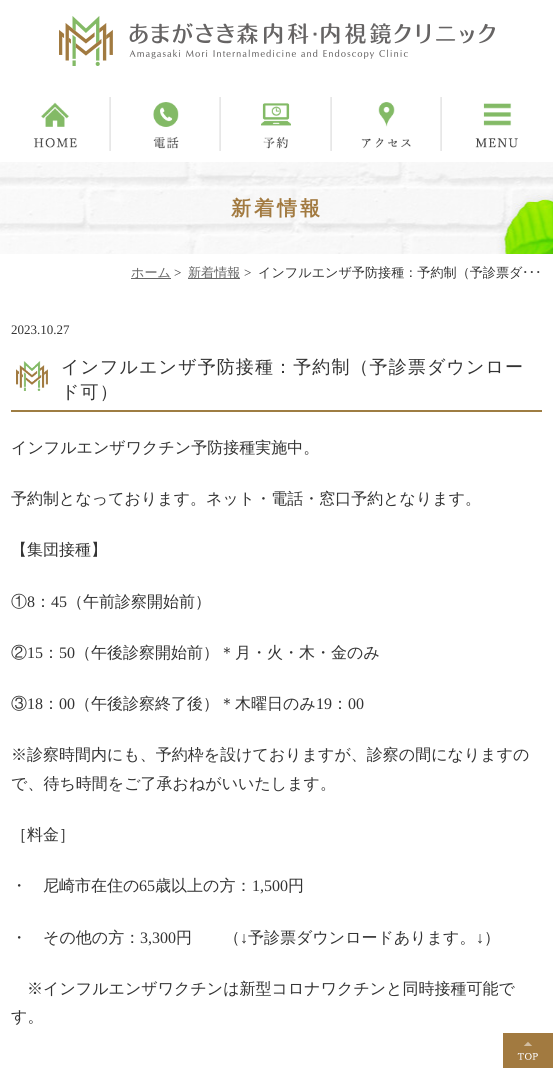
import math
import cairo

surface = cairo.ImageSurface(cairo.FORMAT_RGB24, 553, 1068)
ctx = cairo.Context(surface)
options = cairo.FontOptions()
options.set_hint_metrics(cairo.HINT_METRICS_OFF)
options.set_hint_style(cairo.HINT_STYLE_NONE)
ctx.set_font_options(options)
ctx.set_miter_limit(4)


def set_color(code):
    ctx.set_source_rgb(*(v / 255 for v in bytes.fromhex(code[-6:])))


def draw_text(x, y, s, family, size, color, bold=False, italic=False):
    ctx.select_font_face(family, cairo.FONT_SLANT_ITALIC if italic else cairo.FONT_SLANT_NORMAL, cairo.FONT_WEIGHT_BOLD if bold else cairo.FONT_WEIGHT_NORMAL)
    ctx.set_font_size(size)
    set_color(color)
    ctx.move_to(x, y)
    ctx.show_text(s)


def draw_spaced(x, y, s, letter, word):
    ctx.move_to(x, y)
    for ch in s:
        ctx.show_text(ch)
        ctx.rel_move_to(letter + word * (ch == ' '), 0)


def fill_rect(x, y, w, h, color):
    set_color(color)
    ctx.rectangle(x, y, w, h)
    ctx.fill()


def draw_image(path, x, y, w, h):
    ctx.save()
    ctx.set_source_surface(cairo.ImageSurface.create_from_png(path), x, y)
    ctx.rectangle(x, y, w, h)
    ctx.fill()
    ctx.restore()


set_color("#ffffff")
ctx.paint()
draw_image("assets/img1.png", 59, 16, 436, 50)
fill_rect(110, 97, 1, 54, "#e7e7e7")
draw_image("assets/img2.png", 33, 97, 77, 54)
fill_rect(220, 97, 1, 54, "#e7e7e7")
draw_image("assets/img3.png", 153, 97, 67, 54)
fill_rect(331, 97, 1, 54, "#e7e7e7")
draw_image("assets/img4.png", 261, 97, 70, 54)
fill_rect(441, 97, 1, 54, "#e7e7e7")
draw_image("assets/img5.png", 361, 97, 80, 54)
draw_image("assets/img6.png", 475, 103, 43, 45)
draw_image("assets/img7.png", 0, 162, 553, 92)
ctx.select_font_face("WenQuanYi Zen Hei", cairo.FONT_SLANT_NORMAL, cairo.FONT_WEIGHT_BOLD)
ctx.set_font_size(20)
set_color("#a27a40")
draw_spaced(231, 215, "新着情報", 3, 0)
fill_rect(131, 278, 40, 1, "#666666")
draw_text(131, 277, "ホーム", "WenQuanYi Zen Hei Medium", 13.1, "#666666")
draw_text(174, 277, ">", "Liberation Serif", 13.1, "#333333")
fill_rect(188, 278, 52, 1, "#666666")
draw_text(188, 277, "新着情報", "WenQuanYi Zen Hei Medium", 13.1, "#666666")
draw_text(244, 277, ">", "Liberation Serif", 13.1, "#333333")
draw_text(258, 277, "インフルエンザ予防接種：予約制（予診票ダ", "WenQuanYi Zen Hei Medium", 13.1, "#333333")
draw_text(522, 277, "･･･", "IPAPGothic", 13.1, "#333333")
draw_text(11, 334, "2023.10.27", "Liberation Serif", 13, "#333333")
draw_image("assets/img8.png", 16, 361, 32, 30)
ctx.select_font_face("WenQuanYi Zen Hei Medium")
ctx.set_font_size(18)
draw_spaced(61, 373, "インフルエンザ予防接種：予約制（予診票ダウンロー", 1.1, 0)
draw_spaced(61, 398, "ド可）", 1.1, 0)
fill_rect(11, 410, 531, 2, "#9e7d43")
draw_text(11, 453, "インフルエンザワクチン予防接種実施中。", "WenQuanYi Zen Hei Medium", 16, "#333333")
draw_text(11, 504, "予約制となっております。ネット・電話・窓口予約となります。", "WenQuanYi Zen Hei Medium", 16, "#333333")
draw_text(11, 555, "【集団接種】", "WenQuanYi Zen Hei Medium", 16, "#333333")
draw_text(11, 607, "①", "WenQuanYi Zen Hei Medium", 16, "#333333")
draw_text(27, 607, "8", "Liberation Serif", 16, "#333333")
draw_text(35, 607, "：", "WenQuanYi Zen Hei Medium", 16, "#333333")
draw_text(51, 607, "45", "Liberation Serif", 16, "#333333")
draw_text(67, 607, "（午前診察開始前）", "WenQuanYi Zen Hei Medium", 16, "#333333")
draw_text(11, 658, "②", "WenQuanYi Zen Hei Medium", 16, "#333333")
draw_text(27, 658, "15", "Liberation Serif", 16, "#333333")
draw_text(43, 658, "：", "WenQuanYi Zen Hei Medium", 16, "#333333")
draw_text(59, 658, "50", "Liberation Serif", 16, "#333333")
draw_text(75, 658, "（午後診察開始前）＊月・火・木・金のみ", "WenQuanYi Zen Hei Medium", 16, "#333333")
draw_text(11, 709, "③", "WenQuanYi Zen Hei Medium", 16, "#333333")
draw_text(27, 709, "18", "Liberation Serif", 16, "#333333")
draw_text(43, 709, "：", "WenQuanYi Zen Hei Medium", 16, "#333333")
draw_text(59, 709, "00", "Liberation Serif", 16, "#333333")
draw_text(75, 709, "（午後診察終了後）＊木曜日のみ", "WenQuanYi Zen Hei Medium", 16, "#333333")
draw_text(316, 709, "19", "Liberation Serif", 16, "#333333")
draw_text(332, 709, "：", "WenQuanYi Zen Hei Medium", 16, "#333333")
draw_text(348, 709, "00", "Liberation Serif", 16, "#333333")
draw_text(11, 760, "※診察時間内にも、予約枠を設けておりますが、診察の間になりますの", "WenQuanYi Zen Hei Medium", 16, "#333333")
draw_text(11, 789, "で、待ち時間をご了承おねがいいたします。", "WenQuanYi Zen Hei Medium", 16, "#333333")
draw_text(11, 840, "［料金］", "WenQuanYi Zen Hei Medium", 16, "#333333")
draw_text(11, 891, "・　尼崎市在住の", "WenQuanYi Zen Hei Medium", 16, "#333333")
draw_text(139, 891, "65", "Liberation Serif", 16, "#333333")
draw_text(155, 891, "歳以上の方：", "WenQuanYi Zen Hei Medium", 16, "#333333")
draw_text(252, 891, "1,500", "Liberation Serif", 16, "#333333")
draw_text(288, 891, "円", "WenQuanYi Zen Hei Medium", 16, "#333333")
draw_text(11, 943, "・　その他の方：", "WenQuanYi Zen Hei Medium", 16, "#333333")
draw_text(140, 943, "3,300", "Liberation Serif", 16, "#333333")
draw_text(176, 943, "円　　（", "WenQuanYi Zen Hei Medium", 16, "#333333")
draw_text(240, 943, "↓", "Liberation Serif", 16, "#333333")
draw_text(248, 943, "予診票ダウンロードあります。", "WenQuanYi Zen Hei Medium", 16, "#333333")
draw_text(476, 943, "↓", "Liberation Serif", 16, "#333333")
draw_text(484, 943, "）", "WenQuanYi Zen Hei Medium", 16, "#333333")
draw_text(27, 994, "※インフルエンザワクチンは新型コロナワクチンと同時接種可能で", "WenQuanYi Zen Hei Medium", 16, "#333333")
draw_text(11, 1022, "す。", "WenQuanYi Zen Hei Medium", 16, "#333333")
draw_image("assets/img9.png", 503, 1033, 50, 35)
surface.write_to_png("output.png")
